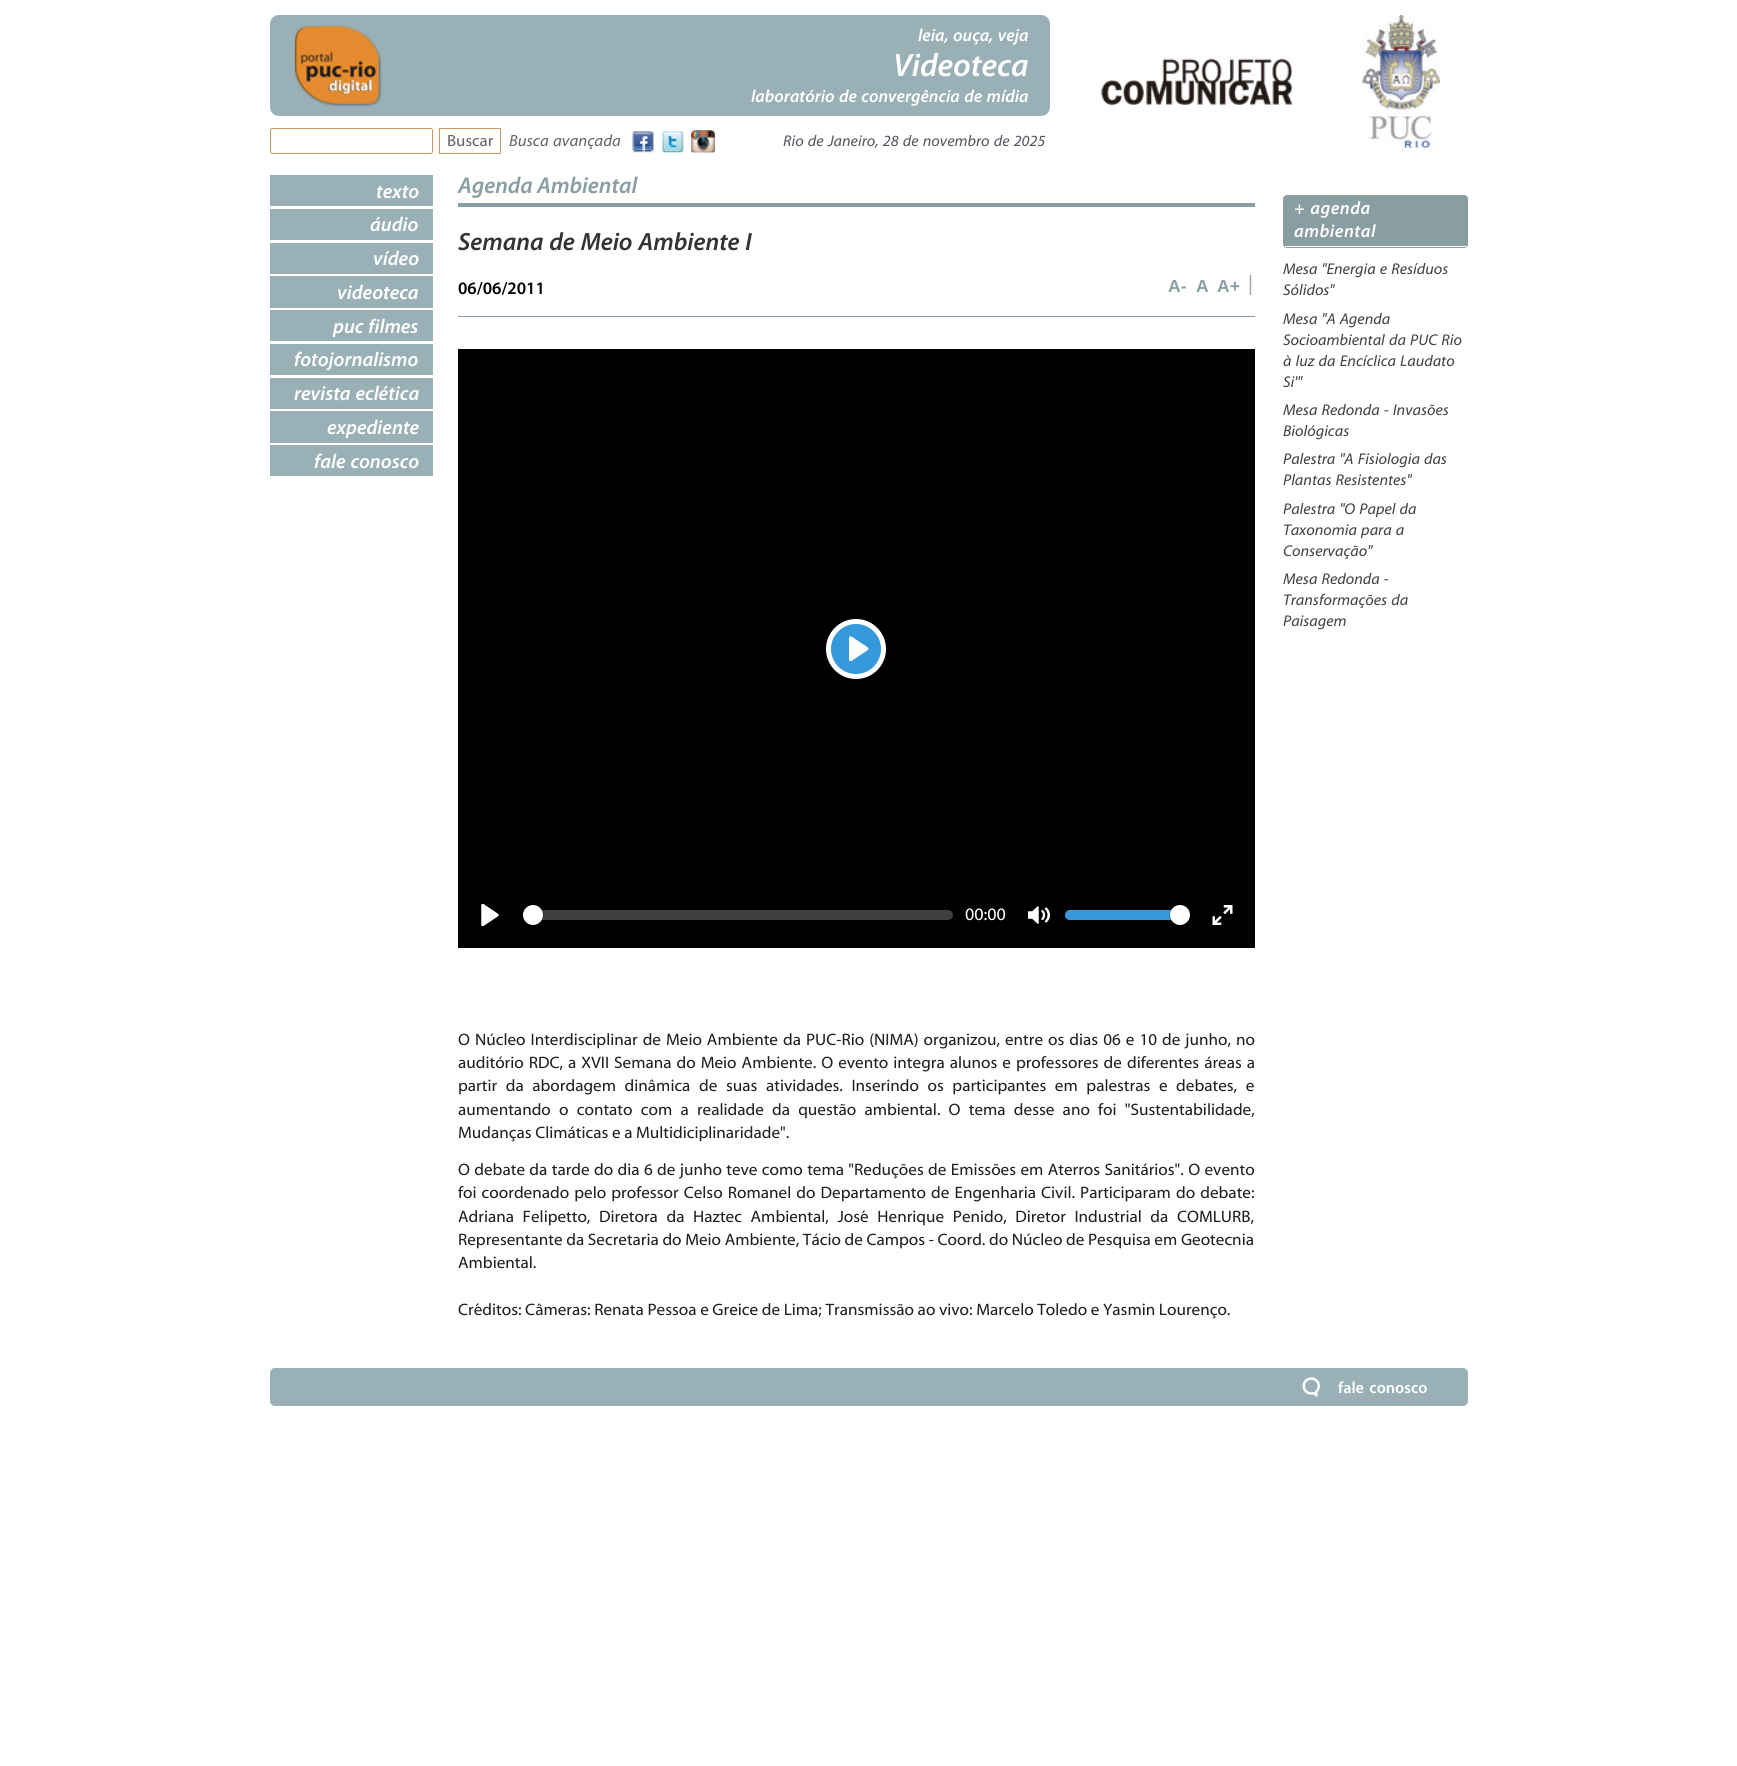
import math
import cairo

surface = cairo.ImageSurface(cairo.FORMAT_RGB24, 1737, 1766)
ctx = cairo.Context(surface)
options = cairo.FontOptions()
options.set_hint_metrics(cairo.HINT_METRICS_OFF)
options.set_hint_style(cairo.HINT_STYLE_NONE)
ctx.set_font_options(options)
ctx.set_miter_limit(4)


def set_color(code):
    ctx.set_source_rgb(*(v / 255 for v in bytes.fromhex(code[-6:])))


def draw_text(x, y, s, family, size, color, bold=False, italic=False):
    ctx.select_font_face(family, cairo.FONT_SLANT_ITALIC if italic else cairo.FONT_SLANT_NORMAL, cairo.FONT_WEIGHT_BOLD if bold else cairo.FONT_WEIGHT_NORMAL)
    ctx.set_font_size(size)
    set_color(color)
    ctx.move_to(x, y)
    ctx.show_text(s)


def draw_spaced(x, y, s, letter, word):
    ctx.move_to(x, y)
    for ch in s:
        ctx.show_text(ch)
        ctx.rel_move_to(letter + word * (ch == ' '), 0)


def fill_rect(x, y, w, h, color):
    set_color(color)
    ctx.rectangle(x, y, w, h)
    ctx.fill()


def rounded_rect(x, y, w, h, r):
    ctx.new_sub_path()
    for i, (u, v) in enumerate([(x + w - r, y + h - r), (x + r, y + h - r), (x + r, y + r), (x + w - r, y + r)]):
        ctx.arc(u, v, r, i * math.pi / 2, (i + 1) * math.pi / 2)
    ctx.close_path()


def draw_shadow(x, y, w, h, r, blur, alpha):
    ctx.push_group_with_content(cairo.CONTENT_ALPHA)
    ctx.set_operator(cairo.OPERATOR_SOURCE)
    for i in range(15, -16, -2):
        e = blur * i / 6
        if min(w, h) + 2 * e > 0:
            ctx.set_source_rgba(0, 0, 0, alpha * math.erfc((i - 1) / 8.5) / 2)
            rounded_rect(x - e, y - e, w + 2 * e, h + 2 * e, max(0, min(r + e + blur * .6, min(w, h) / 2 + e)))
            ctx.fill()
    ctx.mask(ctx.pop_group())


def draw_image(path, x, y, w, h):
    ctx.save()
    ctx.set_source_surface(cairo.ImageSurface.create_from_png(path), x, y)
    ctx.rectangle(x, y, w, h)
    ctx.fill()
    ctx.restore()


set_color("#ffffff")
ctx.paint()
set_color("#99b0b6")
rounded_rect(270, 15, 780, 101, 9)
ctx.fill()
draw_image("assets/img1.png", 294, 25, 88, 82)
ctx.select_font_face("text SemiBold", cairo.FONT_SLANT_ITALIC)
ctx.set_font_size(17.5)
set_color("#ffffff")
draw_spaced(918, 41, "leia, ouça, veja", 0, 1.25)
draw_text(893, 76, "Videoteca", "text SemiBold", 32.5, "#ffffff", italic=True)
ctx.set_font_size(17.5)
draw_spaced(751, 102, "laboratório de convergência de mídia", 0, 1.25)
draw_image("assets/img2.png", 1101, 58, 192, 47)
draw_image("assets/img3.png", 1362, 15, 78, 135)
rounded_rect(270.5, 128.5, 162, 25, 2)
set_color("#cc9966")
ctx.set_line_width(1)
ctx.stroke()
ctx.rectangle(439.5, 128.5, 61, 25)
ctx.stroke()
draw_text(447, 146, "Buscar", "text", 16.25, "#666666")
ctx.select_font_face("text", cairo.FONT_SLANT_ITALIC)
draw_spaced(509, 146, "Busca avançada", 0, 1.25)
draw_image("assets/img4.png", 632, 131, 22, 22)
draw_image("assets/img5.png", 662, 131, 22, 22)
draw_image("assets/img6.png", 691, 130, 24, 23)
ctx.set_font_size(15.6)
set_color("#585860")
draw_spaced(783, 146, "Rio de Janeiro, 28 de novembro de 2025", 0, 1.25)
fill_rect(270, 175, 163, 31, "#99b0b6")
draw_text(376, 198, "texto", "text SemiBold", 20, "#ffffff", italic=True)
fill_rect(270, 209, 163, 31, "#99b0b6")
draw_text(370, 231, "áudio", "text SemiBold", 20, "#ffffff", italic=True)
fill_rect(270, 243, 163, 31, "#99b0b6")
draw_text(373, 265, "vídeo", "text SemiBold", 20, "#ffffff", italic=True)
fill_rect(270, 276, 163, 32, "#99b0b6")
draw_text(337, 299, "videoteca", "text SemiBold", 20, "#ffffff", italic=True)
fill_rect(270, 310, 163, 31, "#99b0b6")
set_color("#ffffff")
draw_spaced(333, 333, "puc filmes", 0, 1.25)
fill_rect(270, 344, 163, 31, "#99b0b6")
draw_text(294, 366, "fotojornalismo", "text SemiBold", 20, "#ffffff", italic=True)
fill_rect(270, 378, 163, 31, "#99b0b6")
set_color("#ffffff")
draw_spaced(294, 400, "revista eclética", 0, 1.25)
fill_rect(270, 411, 163, 32, "#99b0b6")
draw_text(327, 434, "expediente", "text SemiBold", 20, "#ffffff", italic=True)
fill_rect(270, 445, 163, 31, "#99b0b6")
set_color("#ffffff")
draw_spaced(314, 468, "fale conosco", 0, 1.25)
fill_rect(458, 316, 797, 1, "#899ea3")
fill_rect(458, 203, 797, 4, "#899ea3")
draw_text(458, 193, "Agenda Ambiental", "text SemiBold", 23, "#899ea3", italic=True)
ctx.set_font_size(25)
set_color("#333333")
draw_spaced(458, 250, "Semana de Meio Ambiente I", 0, 1.25)
draw_text(458, 294, "06/06/2011", "text SemiBold", 17.5, "#000000")
draw_text(1168, 292, "A-", "Liberation Sans", 17.5, "#899ea3", bold=True)
draw_text(1196, 292, "A", "Liberation Sans", 17.5, "#899ea3", bold=True)
draw_text(1217, 292, "A+", "Liberation Sans", 17.5, "#899ea3", bold=True)
draw_text(1248, 290, "|", "text", 20, "#a9a0a6")
fill_rect(458, 349, 797, 599, "#000000")
set_color("#3498db")
ctx.new_path()
ctx.arc(856, 649, 27.5, 0, 2 * math.pi)
ctx.fill_preserve()
set_color("#ffffff")
ctx.set_line_width(5)
ctx.stroke()
draw_image("assets/img7.png", 849, 636, 20, 25)
draw_image("assets/img8.png", 481, 904, 18, 22)
set_color("#404040")
rounded_rect(523, 910, 430, 10, 5)
ctx.fill()
rounded_rect(521.5, 904.5, 22, 21, 10.5)
ctx.set_source_rgba(0, 0, 0, 0.15)
ctx.set_line_width(1)
ctx.stroke()
set_color("#ffffff")
ctx.arc(533, 915, 10, 0, 2 * math.pi)
ctx.fill()
draw_text(965, 920, "00:00", "text", 17.5, "#ffffff")
draw_image("assets/img9.png", 1028, 906, 22, 18)
set_color("#3498db")
ctx.new_path()
ctx.move_to(1070, 910)
ctx.line_to(1189, 910)
ctx.line_to(1189, 920)
ctx.line_to(1070, 920)
ctx.curve_to(1067, 920, 1065, 918, 1065, 915)
ctx.curve_to(1065, 912, 1067, 910, 1070, 910)
ctx.close_path()
ctx.fill()
ctx.arc(1180, 915, 10.5, 0, 2 * math.pi)
ctx.set_source_rgba(0, 0, 0, 0.15)
ctx.stroke()
set_color("#000000")
draw_shadow(1170, 906, 20, 20, 10, 0.5, 0.15)
set_color("#ffffff")
ctx.arc(1180, 915, 10, 0, 2 * math.pi)
ctx.fill()
draw_image("assets/img10.png", 1212, 905, 21, 20)
ctx.set_font_size(16.6)
set_color("#202020")
draw_spaced(458, 1045, "O Núcleo Interdisciplinar de Meio Ambiente da PUC-Rio (NIMA) organizou, entre os dias 06 e 10 de junho, no", 0, 1.4)
draw_spaced(458, 1068, "auditório RDC, a XVII Semana do Meio Ambiente. O evento integra alunos e professores de diferentes áreas a", 0, 1.4)
draw_spaced(458, 1091, "partir da abordagem dinâmica de suas atividades. Inserindo os participantes em palestras e debates, e", 0, 5)
draw_spaced(458, 1115, "aumentando o contato com a realidade da questão ambiental. O tema desse ano foi \"Sustentabilidade,", 0, 4.6)
draw_text(458, 1138, "Mudanças Climáticas e a Multidiciplinaridade\".", "text", 16.6, "#202020")
draw_spaced(458, 1175, "O debate da tarde do dia 6 de junho teve como tema \"Reduções de Emissões em Aterros Sanitários\". O evento", 0, 0.75)
draw_spaced(458, 1198, "foi coordenado pelo professor Celso Romanel do Departamento de Engenharia Civil. Participaram do debate:", 0, 1.5)
draw_spaced(458, 1222, "Adriana Felipetto, Diretora da Haztec Ambiental, José Henrique Penido, Diretor Industrial da COMLURB,", 0, 5)
draw_text(458, 1245, "Representante da Secretaria do Meio Ambiente, Tácio de Campos - Coord. do Núcleo de Pesquisa em Geotecnia", "text", 16.6, "#202020")
draw_text(458, 1268, "Ambiental.", "text", 16.6, "#202020")
draw_text(458, 1315, "Créditos: Câmeras: Renata Pessoa e Greice de Lima; Transmissão ao vivo: Marcelo Toledo e Yasmin Lourenço.", "text", 16.6, "#202020")
set_color("#899ea3")
rounded_rect(1283, 195, 185, 53, 4)
ctx.fill()
fill_rect(1285, 246, 181, 1, "#ffffff")
ctx.select_font_face("text SemiBold", cairo.FONT_SLANT_ITALIC)
ctx.set_font_size(18)
draw_spaced(1294, 214, "+ agenda", 0.5, 1.25)
draw_spaced(1294, 237, "ambiental", 0.5, 0)
ctx.select_font_face("text", cairo.FONT_SLANT_ITALIC)
ctx.set_font_size(15.6)
set_color("#444444")
draw_spaced(1283, 274, "Mesa \"Energia e Resíduos", 0, 1.25)
draw_text(1283, 295, "Sólidos\"", "text", 15.6, "#444444", italic=True)
draw_spaced(1283, 324, "Mesa \"A Agenda", 0, 1.25)
draw_spaced(1283, 345, "Socioambiental da PUC Rio", 0, 1.25)
draw_spaced(1283, 366, "à luz da Encíclica Laudato", 0, 1.25)
draw_text(1283, 387, "Si'\"", "text", 15.6, "#444444", italic=True)
draw_spaced(1283, 415, "Mesa Redonda - Invasões", 0, 1.25)
draw_text(1283, 436, "Biológicas", "text", 15.6, "#444444", italic=True)
draw_spaced(1283, 464, "Palestra \"A Fisiologia das", 0, 1.25)
draw_spaced(1283, 485, "Plantas Resistentes\"", 0, 1.25)
draw_spaced(1283, 514, "Palestra \"O Papel da", 0, 1.25)
draw_spaced(1283, 535, "Taxonomia para a", 0, 1.25)
draw_text(1283, 556, "Conservação\"", "text", 15.6, "#444444", italic=True)
draw_spaced(1283, 584, "Mesa Redonda -", 0, 1.25)
draw_spaced(1283, 605, "Transformações da", 0, 1.25)
draw_text(1283, 626, "Paisagem", "text", 15.6, "#444444", italic=True)
set_color("#99b0b6")
rounded_rect(270, 1368, 1198, 38, 5)
ctx.fill()
draw_image("assets/img11.png", 1302, 1377, 18, 21)
ctx.select_font_face("text SemiBold")
ctx.set_font_size(16.25)
set_color("#ffffff")
draw_spaced(1338, 1393, "fale conosco", 0, 2)
surface.write_to_png("output.png")
